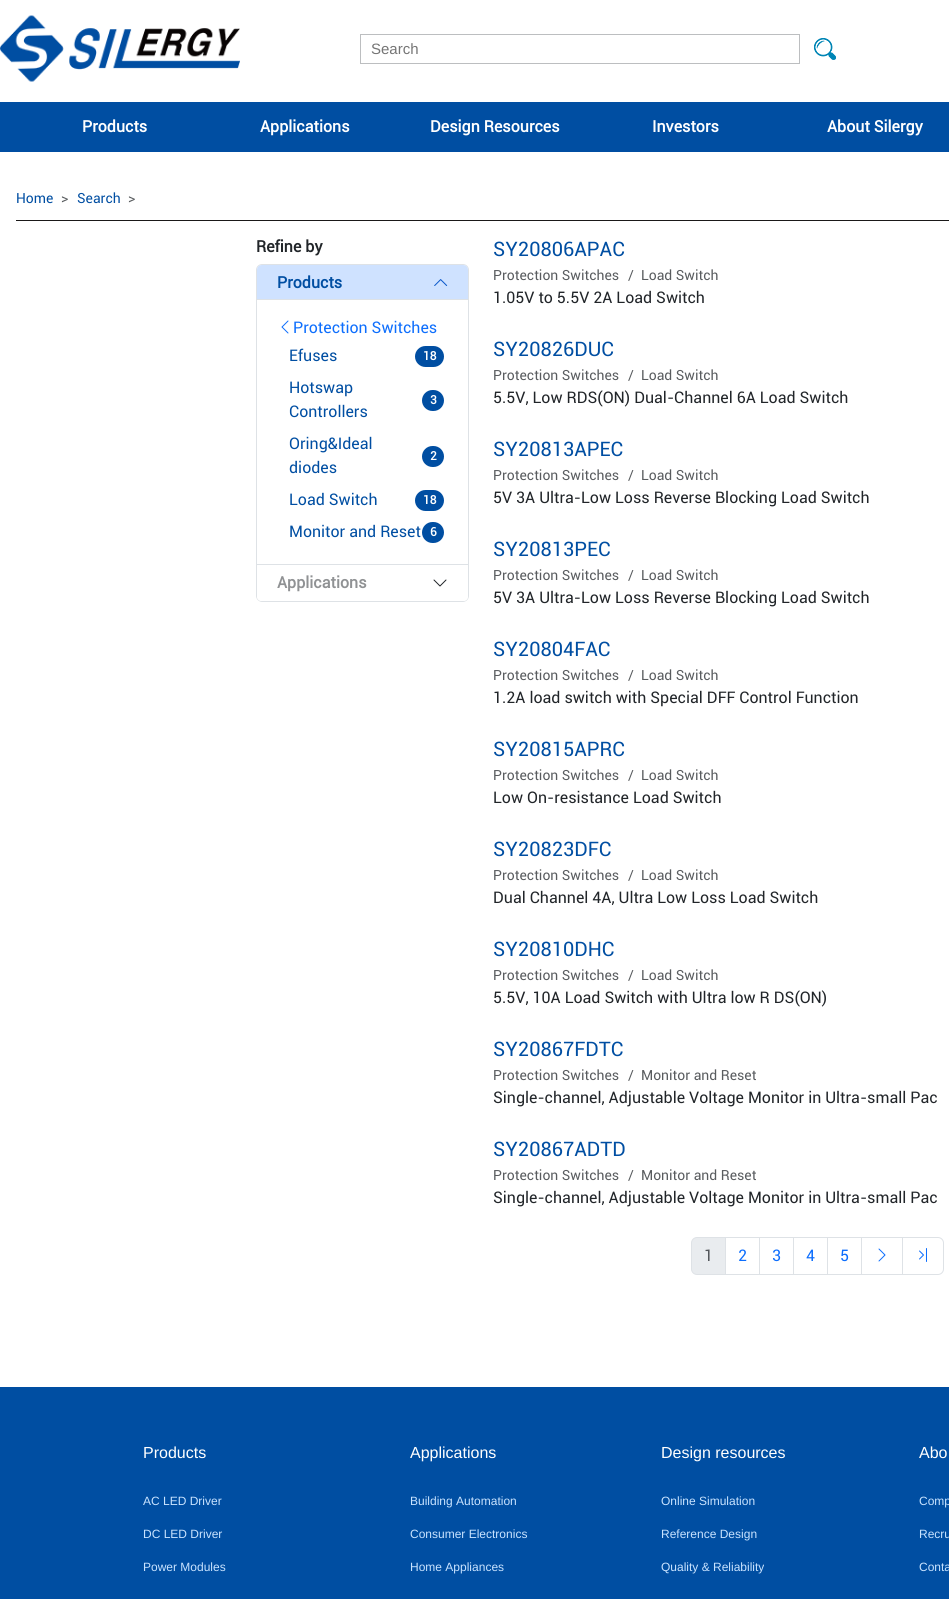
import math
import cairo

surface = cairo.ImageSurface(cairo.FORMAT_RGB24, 949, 1599)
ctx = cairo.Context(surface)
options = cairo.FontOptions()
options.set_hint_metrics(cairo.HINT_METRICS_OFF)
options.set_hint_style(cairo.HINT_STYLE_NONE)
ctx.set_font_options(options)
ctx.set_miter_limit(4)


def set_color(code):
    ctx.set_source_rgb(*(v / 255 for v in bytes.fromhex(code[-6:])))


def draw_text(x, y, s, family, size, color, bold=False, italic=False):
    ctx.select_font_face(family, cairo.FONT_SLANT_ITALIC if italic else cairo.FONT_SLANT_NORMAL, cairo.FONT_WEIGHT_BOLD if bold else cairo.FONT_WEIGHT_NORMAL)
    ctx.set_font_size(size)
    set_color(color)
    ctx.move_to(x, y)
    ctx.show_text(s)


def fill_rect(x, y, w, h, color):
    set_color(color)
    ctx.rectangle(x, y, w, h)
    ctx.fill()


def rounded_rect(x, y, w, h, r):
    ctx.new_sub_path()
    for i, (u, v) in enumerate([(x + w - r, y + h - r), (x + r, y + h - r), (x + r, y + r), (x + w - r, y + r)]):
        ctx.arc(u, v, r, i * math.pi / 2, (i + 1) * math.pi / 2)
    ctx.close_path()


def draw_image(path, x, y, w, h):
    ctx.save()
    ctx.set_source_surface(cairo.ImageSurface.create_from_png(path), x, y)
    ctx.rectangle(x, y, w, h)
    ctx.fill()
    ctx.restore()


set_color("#ffffff")
ctx.paint()
draw_image("assets/img1.png", 0, 15, 240, 67)
ctx.rectangle(360.5, 34.5, 439, 29)
set_color("#bcbec0")
ctx.set_line_width(1)
ctx.stroke()
draw_text(371, 54, "Search", "Liberation Sans", 15, "#757575")
draw_image("assets/img2.png", 814, 38, 22, 22)
fill_rect(0, 102, 949, 50, "#004ea2")
draw_text(82, 132, "Products", "Roboto", 16, "#ffffff", bold=True)
draw_text(260, 132, "Applications", "Roboto", 16, "#ffffff", bold=True)
draw_text(430, 132, "Design Resources", "Roboto", 16, "#ffffff", bold=True)
draw_text(652, 132, "Investors", "Roboto", 16, "#ffffff", bold=True)
draw_text(827, 132, "About Silergy", "Roboto", 16, "#ffffff", bold=True)
fill_rect(16, 220, 933, 1, "#1a1818")
draw_text(16, 203, "Home", "Roboto", 14, "#004ea2")
draw_text(61, 203, ">", "Roboto", 14, "#595c5f")
draw_text(77, 203, "Search", "Roboto", 14, "#004ea2")
draw_text(128, 203, ">", "Roboto", 14, "#595c5f")
draw_text(256, 252, "Refine by", "Roboto", 16, "#212529", bold=True)
ctx.new_path()
ctx.move_to(262, 264.5)
ctx.line_to(463, 264.5)
ctx.curve_to(466, 264.5, 468.5, 267, 468.5, 270)
ctx.line_to(468.5, 564.5)
ctx.line_to(256.5, 564.5)
ctx.line_to(256.5, 270)
ctx.curve_to(256.5, 267, 259, 264.5, 262, 264.5)
ctx.close_path()
set_color("#dee2e6")
ctx.stroke()
set_color("#cfe2ff")
ctx.new_path()
ctx.move_to(262, 265)
ctx.line_to(463, 265)
ctx.curve_to(466, 265, 468, 267, 468, 270)
ctx.line_to(468, 300)
ctx.line_to(257, 300)
ctx.line_to(257, 270)
ctx.curve_to(257, 267, 259, 265, 262, 265)
ctx.close_path()
ctx.fill()
fill_rect(257, 299, 211, 1, "#dee2e6")
draw_text(277, 288, "Products", "Roboto", 16, "#004ea2", bold=True)
draw_image("assets/img3.png", 434, 279, 14, 7)
draw_image("assets/img4.png", 281, 320, 8, 14)
draw_text(293, 333, "Protection Switches", "Roboto", 16, "#0d6efd")
draw_text(289, 361, "Efuses", "Roboto", 16, "#004ea2")
rounded_rect(415, 346, 29, 21, 10.5)
ctx.fill()
draw_text(423, 360, "18", "Roboto", 12, "#ffffff", bold=True)
draw_text(289, 393, "Hotswap", "Roboto", 16, "#004ea2")
draw_text(289, 417, "Controllers", "Roboto", 16, "#004ea2")
rounded_rect(422, 390, 22, 21, 10.5)
ctx.fill()
draw_text(430, 404, "3", "Roboto", 12, "#ffffff", bold=True)
draw_text(289, 449, "Oring&Ideal", "Roboto", 16, "#004ea2")
draw_text(289, 473, "diodes", "Roboto", 16, "#004ea2")
rounded_rect(422, 446, 22, 21, 10.5)
ctx.fill()
draw_text(430, 460, "2", "Roboto", 12, "#ffffff", bold=True)
draw_text(289, 505, "Load Switch", "Roboto", 16, "#004ea2")
rounded_rect(415, 490, 29, 21, 10.5)
ctx.fill()
draw_text(423, 504, "18", "Roboto", 12, "#ffffff", bold=True)
draw_text(289, 537, "Monitor and Reset", "Roboto", 16, "#004ea2")
rounded_rect(422, 522, 22, 21, 10.5)
ctx.fill()
draw_text(430, 536, "6", "Roboto", 12, "#ffffff", bold=True)
set_color("#dee2e6")
ctx.set_fill_rule(cairo.FILL_RULE_EVEN_ODD)
ctx.new_path()
ctx.move_to(256, 565)
ctx.line_to(469, 565)
ctx.line_to(469, 596)
ctx.curve_to(469, 599, 466, 602, 463, 602)
ctx.line_to(262, 602)
ctx.curve_to(259, 602, 256, 599, 256, 596)
ctx.close_path()
ctx.move_to(257, 565)
ctx.line_to(468, 565)
ctx.line_to(468, 596)
ctx.curve_to(468, 599, 466, 601, 463, 601)
ctx.line_to(262, 601)
ctx.curve_to(259, 601, 257, 599, 257, 596)
ctx.close_path()
ctx.fill()
set_color("#ffffff")
ctx.new_path()
ctx.move_to(257, 565)
ctx.line_to(468, 565)
ctx.line_to(468, 596)
ctx.curve_to(468, 599, 466, 601, 463, 601)
ctx.line_to(262, 601)
ctx.curve_to(259, 601, 257, 599, 257, 596)
ctx.close_path()
ctx.fill()
draw_text(277, 588, "Applications", "Roboto", 16, "#909294", bold=True)
draw_image("assets/img5.png", 433, 579, 14, 8)
draw_text(493, 256, "SY20806APAC", "Roboto", 20, "#004ea2")
draw_text(493, 280, "Protection Switches", "Roboto", 14, "#595c5f")
draw_text(628, 280, "/", "Roboto", 14, "#595c5f")
draw_text(641, 280, "Load Switch", "Roboto", 14, "#595c5f")
draw_text(493, 303, "1.05V to 5.5V 2A Load Switch", "Roboto", 16, "#212529")
draw_text(493, 356, "SY20826DUC", "Roboto", 20, "#004ea2")
draw_text(493, 380, "Protection Switches", "Roboto", 14, "#595c5f")
draw_text(628, 380, "/", "Roboto", 14, "#595c5f")
draw_text(641, 380, "Load Switch", "Roboto", 14, "#595c5f")
draw_text(493, 403, "5.5V, Low RDS(ON) Dual-Channel 6A Load Switch", "Roboto", 16, "#212529")
draw_text(493, 456, "SY20813APEC", "Roboto", 20, "#004ea2")
draw_text(493, 480, "Protection Switches", "Roboto", 14, "#595c5f")
draw_text(628, 480, "/", "Roboto", 14, "#595c5f")
draw_text(641, 480, "Load Switch", "Roboto", 14, "#595c5f")
draw_text(493, 503, "5V 3A Ultra-Low Loss Reverse Blocking Load Switch", "Roboto", 16, "#212529")
draw_text(493, 556, "SY20813PEC", "Roboto", 20, "#004ea2")
draw_text(493, 580, "Protection Switches", "Roboto", 14, "#595c5f")
draw_text(628, 580, "/", "Roboto", 14, "#595c5f")
draw_text(641, 580, "Load Switch", "Roboto", 14, "#595c5f")
draw_text(493, 603, "5V 3A Ultra-Low Loss Reverse Blocking Load Switch", "Roboto", 16, "#212529")
draw_text(493, 656, "SY20804FAC", "Roboto", 20, "#004ea2")
draw_text(493, 680, "Protection Switches", "Roboto", 14, "#595c5f")
draw_text(628, 680, "/", "Roboto", 14, "#595c5f")
draw_text(641, 680, "Load Switch", "Roboto", 14, "#595c5f")
draw_text(493, 703, "1.2A load switch with Special DFF Control Function", "Roboto", 16, "#212529")
draw_text(493, 756, "SY20815APRC", "Roboto", 20, "#004ea2")
draw_text(493, 780, "Protection Switches", "Roboto", 14, "#595c5f")
draw_text(628, 780, "/", "Roboto", 14, "#595c5f")
draw_text(641, 780, "Load Switch", "Roboto", 14, "#595c5f")
draw_text(493, 803, "Low On-resistance Load Switch", "Roboto", 16, "#212529")
draw_text(493, 856, "SY20823DFC", "Roboto", 20, "#004ea2")
draw_text(493, 880, "Protection Switches", "Roboto", 14, "#595c5f")
draw_text(628, 880, "/", "Roboto", 14, "#595c5f")
draw_text(641, 880, "Load Switch", "Roboto", 14, "#595c5f")
draw_text(493, 903, "Dual Channel 4A, Ultra Low Loss Load Switch", "Roboto", 16, "#212529")
draw_text(493, 956, "SY20810DHC", "Roboto", 20, "#004ea2")
draw_text(493, 980, "Protection Switches", "Roboto", 14, "#595c5f")
draw_text(628, 980, "/", "Roboto", 14, "#595c5f")
draw_text(641, 980, "Load Switch", "Roboto", 14, "#595c5f")
draw_text(493, 1003, "5.5V, 10A Load Switch with Ultra low R DS(ON)", "Roboto", 16, "#212529")
draw_text(493, 1056, "SY20867FDTC", "Roboto", 20, "#004ea2")
draw_text(493, 1080, "Protection Switches", "Roboto", 14, "#595c5f")
draw_text(628, 1080, "/", "Roboto", 14, "#595c5f")
draw_text(641, 1080, "Monitor and Reset", "Roboto", 14, "#595c5f")
draw_text(493, 1103, "Single-channel, Adjustable Voltage Monitor in Ultra-small Pac", "Roboto", 16, "#212529")
draw_text(493, 1156, "SY20867ADTD", "Roboto", 20, "#004ea2")
draw_text(493, 1180, "Protection Switches", "Roboto", 14, "#595c5f")
draw_text(628, 1180, "/", "Roboto", 14, "#595c5f")
draw_text(641, 1180, "Monitor and Reset", "Roboto", 14, "#595c5f")
draw_text(493, 1203, "Single-channel, Adjustable Voltage Monitor in Ultra-small Pac", "Roboto", 16, "#212529")
set_color("#e9ecef")
ctx.new_path()
ctx.move_to(697, 1237.5)
ctx.line_to(725.5, 1237.5)
ctx.line_to(725.5, 1274.5)
ctx.line_to(697, 1274.5)
ctx.curve_to(694, 1274.5, 691.5, 1272, 691.5, 1269)
ctx.line_to(691.5, 1243)
ctx.curve_to(691.5, 1240, 694, 1237.5, 697, 1237.5)
ctx.close_path()
ctx.fill_preserve()
set_color("#dee2e6")
ctx.stroke()
draw_text(704, 1261, "1", "Roboto", 16, "#53575b")
ctx.rectangle(725.5, 1237.5, 34, 37)
set_color("#dee2e6")
ctx.stroke()
draw_text(738, 1261, "2", "Roboto", 16, "#0d6efd")
ctx.rectangle(759.5, 1237.5, 34, 37)
set_color("#dee2e6")
ctx.stroke()
draw_text(772, 1261, "3", "Roboto", 16, "#0d6efd")
ctx.rectangle(793.5, 1237.5, 34, 37)
set_color("#dee2e6")
ctx.stroke()
draw_text(806, 1261, "4", "Roboto", 16, "#0d6efd")
ctx.rectangle(827.5, 1237.5, 34, 37)
set_color("#dee2e6")
ctx.stroke()
draw_text(840, 1261, "5", "Roboto", 16, "#0d6efd")
ctx.rectangle(861.5, 1237.5, 41, 37)
set_color("#dee2e6")
ctx.stroke()
draw_image("assets/img6.png", 878, 1248, 8, 14)
set_color("#ffffff")
ctx.new_path()
ctx.move_to(902.5, 1237.5)
ctx.line_to(938, 1237.5)
ctx.curve_to(941, 1237.5, 943.5, 1240, 943.5, 1243)
ctx.line_to(943.5, 1269)
ctx.curve_to(943.5, 1272, 941, 1274.5, 938, 1274.5)
ctx.line_to(902.5, 1274.5)
ctx.close_path()
ctx.fill_preserve()
set_color("#dee2e6")
ctx.stroke()
draw_image("assets/img7.png", 919, 1248, 8, 14)
fill_rect(0, 1387, 949, 212, "#004ea2")
draw_text(143, 1458, "Products", "Liberation Sans", 16, "#ffffff")
draw_text(143, 1505, "AC LED Driver", "Liberation Sans", 12, "#c9e3ff")
draw_text(143, 1538, "DC LED Driver", "Liberation Sans", 12, "#c9e3ff")
draw_text(143, 1571, "Power Modules", "Liberation Sans", 12, "#c9e3ff")
draw_text(410, 1458, "Applications", "Liberation Sans", 16, "#ffffff")
draw_text(410, 1505, "Building Automation", "Liberation Sans", 12, "#c9e3ff")
draw_text(410, 1538, "Consumer Electronics", "Liberation Sans", 12, "#c9e3ff")
draw_text(410, 1571, "Home Appliances", "Liberation Sans", 12, "#c9e3ff")
draw_text(661, 1458, "Design resources", "Liberation Sans", 16, "#ffffff")
draw_text(661, 1505, "Online Simulation", "Liberation Sans", 12, "#c9e3ff")
draw_text(661, 1538, "Reference Design", "Liberation Sans", 12, "#c9e3ff")
draw_text(661, 1571, "Quality & Reliability", "Liberation Sans", 12, "#c9e3ff")
draw_text(919, 1458, "Abo", "Liberation Sans", 16, "#ffffff")
draw_text(919, 1505, "Comp", "Liberation Sans", 12, "#c9e3ff")
draw_text(919, 1538, "Recru", "Liberation Sans", 12, "#c9e3ff")
draw_text(919, 1571, "Conta", "Liberation Sans", 12, "#c9e3ff")
surface.write_to_png("output.png")
